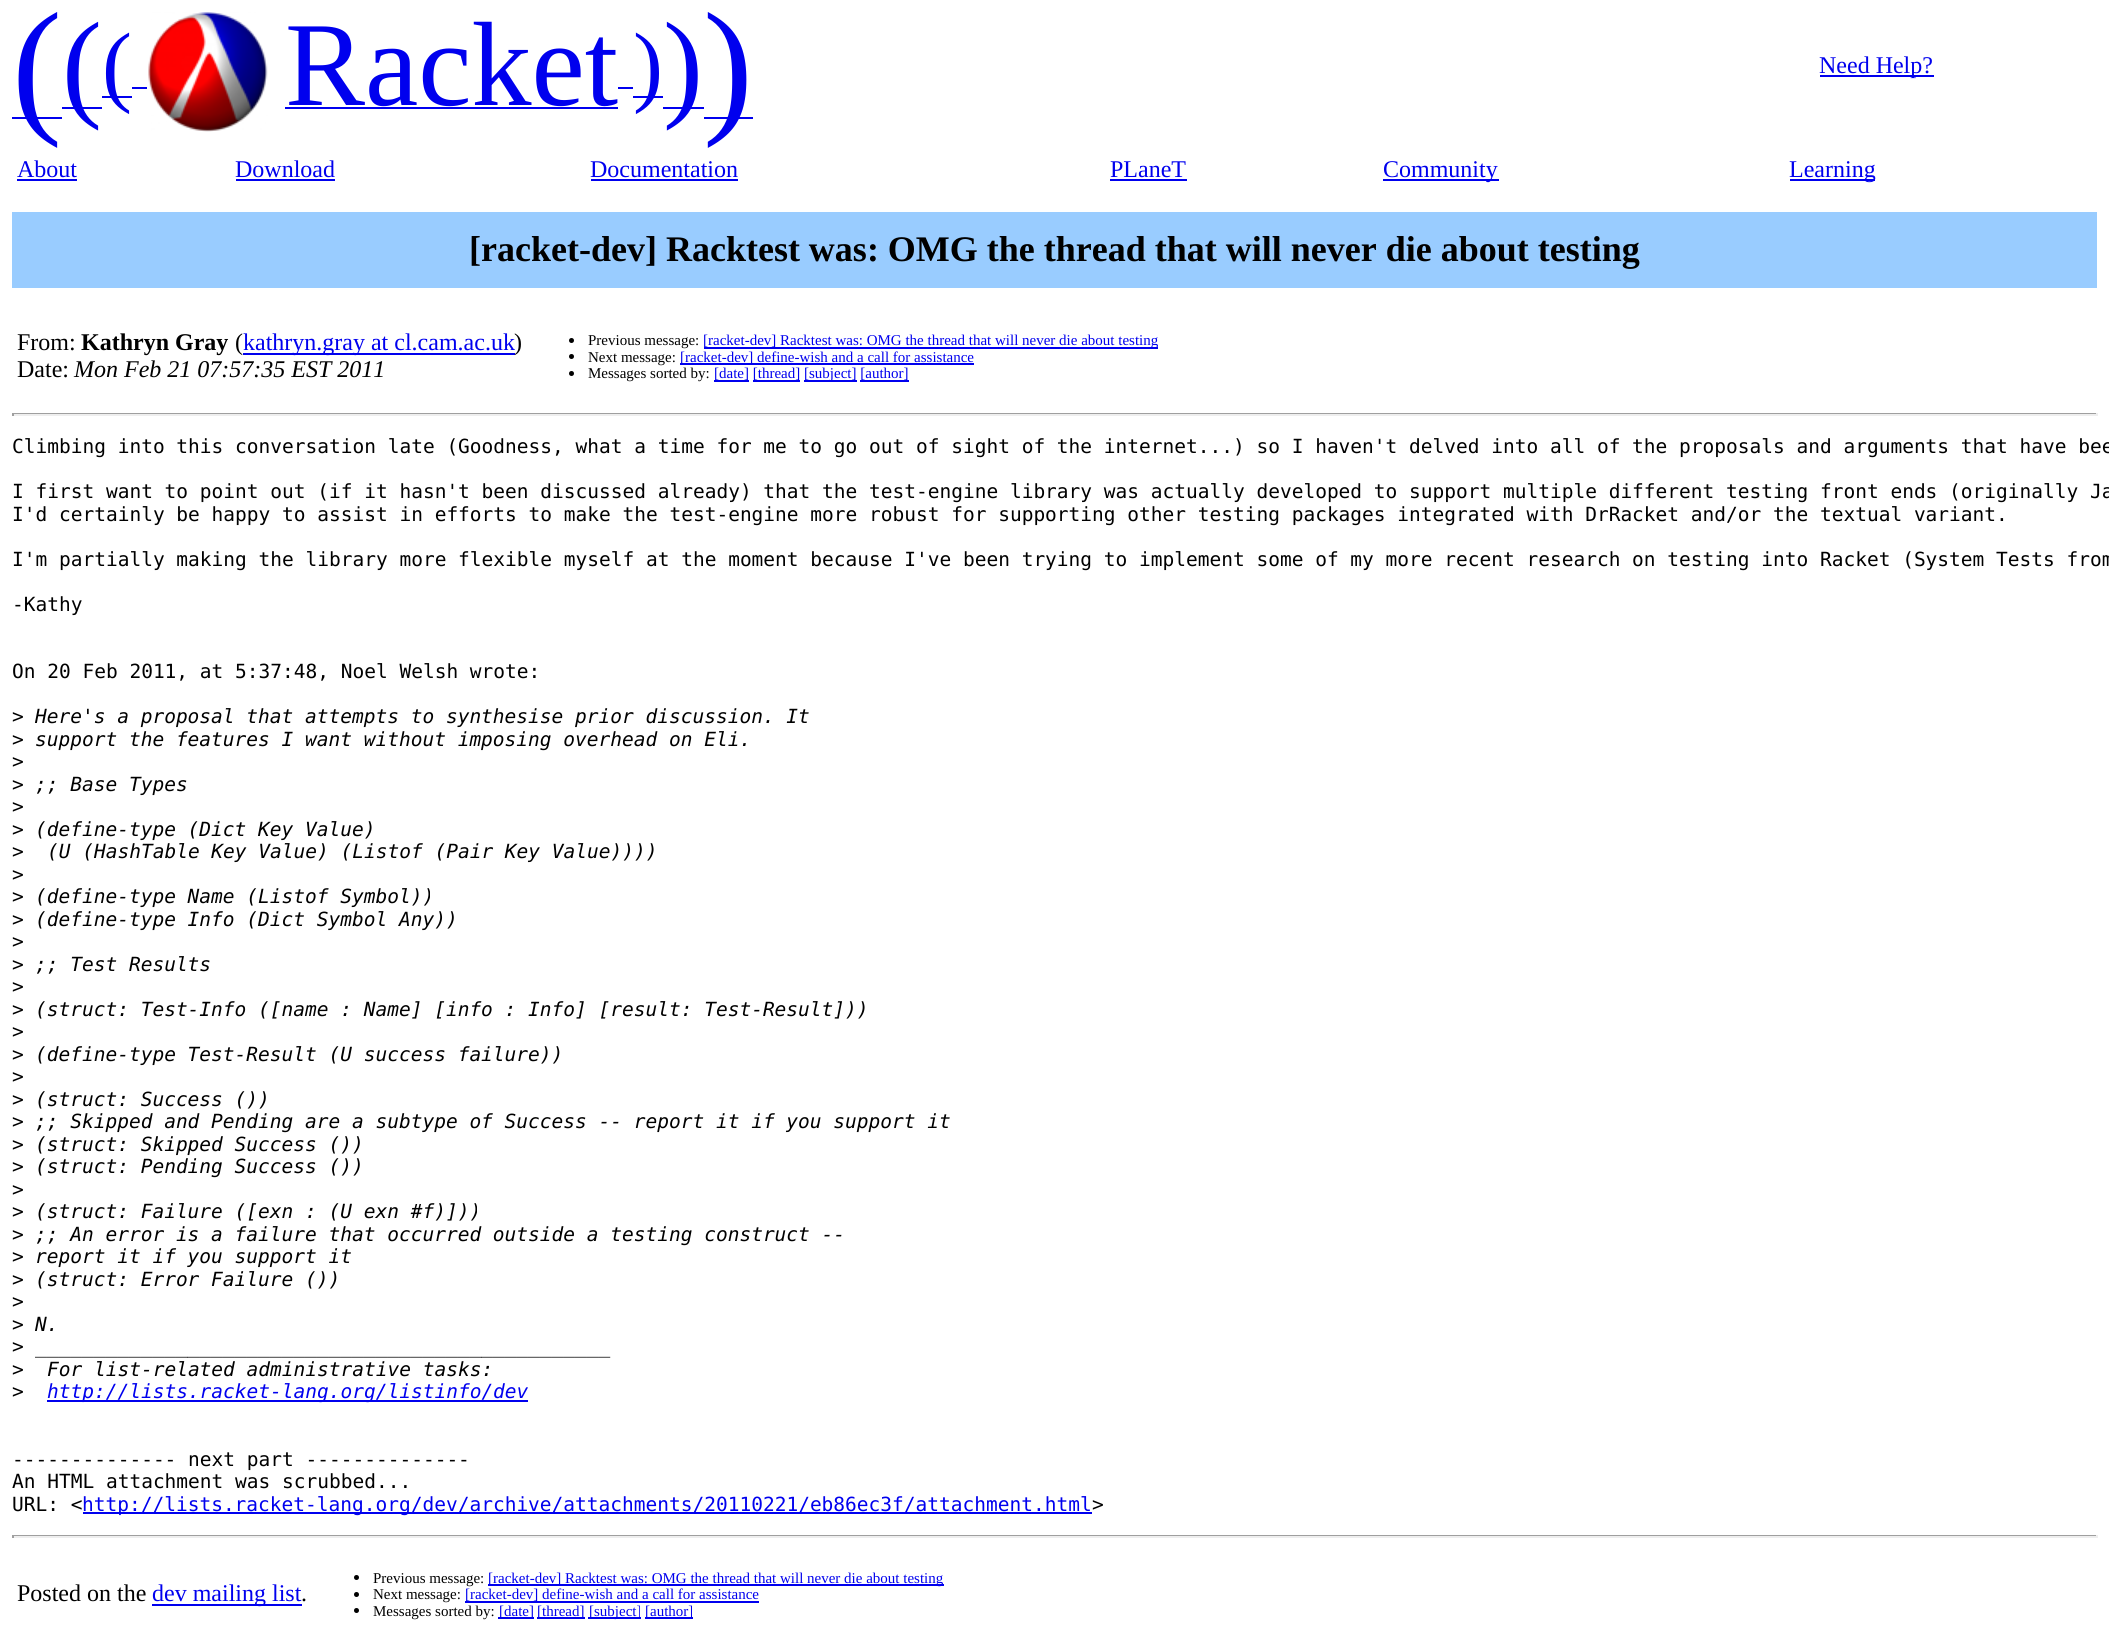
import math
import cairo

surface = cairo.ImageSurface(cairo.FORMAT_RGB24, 2109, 1645)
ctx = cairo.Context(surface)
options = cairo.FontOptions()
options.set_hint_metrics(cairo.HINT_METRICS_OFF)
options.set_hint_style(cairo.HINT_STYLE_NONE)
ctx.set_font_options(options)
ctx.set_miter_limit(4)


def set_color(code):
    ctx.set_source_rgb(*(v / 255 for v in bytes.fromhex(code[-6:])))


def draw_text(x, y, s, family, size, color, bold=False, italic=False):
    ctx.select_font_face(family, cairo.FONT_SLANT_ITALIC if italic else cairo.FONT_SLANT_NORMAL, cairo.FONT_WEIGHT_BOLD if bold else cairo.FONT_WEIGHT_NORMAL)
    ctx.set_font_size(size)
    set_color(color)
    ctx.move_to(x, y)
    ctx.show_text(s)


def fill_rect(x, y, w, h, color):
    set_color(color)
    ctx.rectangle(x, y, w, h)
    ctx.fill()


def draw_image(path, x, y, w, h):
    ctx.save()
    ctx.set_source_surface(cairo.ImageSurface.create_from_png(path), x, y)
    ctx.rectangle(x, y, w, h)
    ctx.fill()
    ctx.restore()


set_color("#ffffff")
ctx.paint()
fill_rect(12, 117, 50, 2, "#0000ee")
draw_text(12, 116, "(", "Liberation Serif", 150, "#0000ee")
fill_rect(62, 107, 40, 2, "#0000ee")
draw_text(62, 105, "(", "Liberation Serif", 120, "#0000ee")
fill_rect(102, 96, 30, 2, "#0000ee")
draw_text(102, 95, "(", "Liberation Serif", 90, "#0000ee")
fill_rect(132, 87, 15, 2, "#0000ee")
draw_image("assets/img1.png", 148, 12, 120, 120)
draw_text(285, 105, "Racket", "Liberation Serif", 120, "#0000ee")
fill_rect(633, 96, 30, 2, "#0000ee")
draw_text(633, 95, ")", "Liberation Serif", 90, "#0000ee")
fill_rect(285, 107, 333, 2, "#0000ee")
fill_rect(618, 87, 15, 2, "#0000ee")
fill_rect(663, 107, 41, 2, "#0000ee")
draw_text(663, 105, ")", "Liberation Serif", 120, "#0000ee")
fill_rect(704, 117, 49, 2, "#0000ee")
draw_text(703, 116, ")", "Liberation Serif", 150, "#0000ee")
fill_rect(1820, 75, 114, 2, "#0000ee")
draw_text(1819, 73, "Need Help?", "Liberation Serif", 24, "#0000ee")
draw_text(17, 177, "About", "Liberation Serif", 24, "#0000ee")
fill_rect(17, 179, 60, 2, "#0000ee")
draw_text(235, 177, "Download", "Liberation Serif", 24, "#0000ee")
fill_rect(236, 179, 99, 2, "#0000ee")
draw_text(590, 177, "Documentation", "Liberation Serif", 24, "#0000ee")
fill_rect(591, 179, 147, 2, "#0000ee")
draw_text(1110, 177, "PLaneT", "Liberation Serif", 24, "#0000ee")
fill_rect(1110, 179, 77, 2, "#0000ee")
fill_rect(1383, 179, 116, 2, "#0000ee")
draw_text(1383, 177, "Community", "Liberation Serif", 24, "#0000ee")
fill_rect(1790, 179, 85, 2, "#0000ee")
draw_text(1789, 177, "Learning", "Liberation Serif", 24, "#0000ee")
fill_rect(12, 212, 2085, 76, "#99ccff")
draw_text(469, 261, "[racket-dev] Racktest was: OMG the thread that will never die about testing", "Liberation Serif", 36, "#000000", bold=True)
draw_text(17, 350, "From:", "Liberation Serif", 24, "#000000")
draw_text(81, 350, "Kathryn Gray", "Liberation Serif", 24, "#000000", bold=True)
draw_text(235, 350, "(", "Liberation Serif", 24, "#000000")
fill_rect(243, 353, 272, 2, "#0000ee")
draw_text(243, 350, "kathryn.gray at cl.cam.ac.uk", "Liberation Serif", 24, "#0000ee")
draw_text(514, 350, ")", "Liberation Serif", 24, "#000000")
draw_text(17, 377, "Date:", "Liberation Serif", 24, "#000000")
draw_text(74, 377, "Mon Feb 21 07:57:35 EST 2011", "Liberation Serif", 24, "#000000", italic=True)
ctx.new_path()
ctx.arc(571.5, 340.5, 2.5, 0, 2 * math.pi)
ctx.fill()
draw_text(588, 345, "Previous message:", "Liberation Serif", 15, "#000000")
fill_rect(704, 347, 454, 2, "#0000ee")
draw_text(703, 345, "[racket-dev] Racktest was: OMG the thread that will never die about testing", "Liberation Serif", 15, "#0000ee")
set_color("#000000")
ctx.new_path()
ctx.arc(571.5, 356.5, 2.5, 0, 2 * math.pi)
ctx.fill()
draw_text(588, 362, "Next message:", "Liberation Serif", 15, "#000000")
fill_rect(680, 363, 294, 2, "#0000ee")
draw_text(680, 362, "[racket-dev] define-wish and a call for assistance", "Liberation Serif", 15, "#0000ee")
set_color("#000000")
ctx.new_path()
ctx.arc(571.5, 373.5, 2.5, 0, 2 * math.pi)
ctx.fill()
draw_text(588, 378, "Messages sorted by:", "Liberation Serif", 15, "#000000")
draw_text(714, 378, "[date] [thread]", "Liberation Serif", 15, "#0000ee")
fill_rect(714, 380, 35, 2, "#0000ee")
fill_rect(804, 380, 53, 2, "#0000ee")
draw_text(804, 378, "[subject] [author]", "Liberation Serif", 15, "#0000ee")
fill_rect(753, 380, 47, 2, "#0000ee")
fill_rect(860, 380, 49, 2, "#0000ee")
fill_rect(12, 413, 2085, 1, "#9f9f9f")
fill_rect(2096, 413, 2, 3, "#eeeeee")
fill_rect(12, 414, 2085, 2, "#eeeeee")
fill_rect(12, 413, 2, 3, "#9f9f9f")
draw_text(12, 453, "Climbing into this conversation late (Goodness, what a time for me to go out of sight of the internet...) so I haven't delved into all of the proposals and arguments that have bee", "DejaVu Sans Mono", 19.5, "#000000")
draw_text(12, 498, "I first want to point out (if it hasn't been discussed already) that the test-engine library was actually developed to support multiple different testing front ends (originally Ja", "DejaVu Sans Mono", 19.5, "#000000")
draw_text(12, 521, "I'd certainly be happy to assist in efforts to make the test-engine more robust for supporting other testing packages integrated with DrRacket and/or the textual variant.", "DejaVu Sans Mono", 19.5, "#000000")
draw_text(12, 566, "I'm partially making the library more flexible myself at the moment because I've been trying to implement some of my more recent research on testing into Racket (System Tests from", "DejaVu Sans Mono", 19.5, "#000000")
draw_text(12, 611, "-Kathy", "DejaVu Sans Mono", 19.5, "#000000")
draw_text(12, 678, "On 20 Feb 2011, at 5:37:48, Noel Welsh wrote:", "DejaVu Sans Mono", 19.5, "#000000")
draw_text(12, 723, ">", "DejaVu Sans Mono", 19.5, "#000000")
draw_text(35, 723, "Here's a proposal that attempts to synthesise prior discussion. It", "DejaVu Sans Mono", 19.5, "#000000", italic=True)
draw_text(12, 746, ">", "DejaVu Sans Mono", 19.5, "#000000")
draw_text(35, 746, "support the features I want without imposing overhead on Eli.", "DejaVu Sans Mono", 19.5, "#000000", italic=True)
draw_text(12, 768, ">", "DejaVu Sans Mono", 19.5, "#000000")
draw_text(12, 791, ">", "DejaVu Sans Mono", 19.5, "#000000")
draw_text(35, 791, ";; Base Types", "DejaVu Sans Mono", 19.5, "#000000", italic=True)
draw_text(12, 813, ">", "DejaVu Sans Mono", 19.5, "#000000")
draw_text(12, 836, ">", "DejaVu Sans Mono", 19.5, "#000000")
draw_text(35, 836, "(define-type (Dict Key Value)", "DejaVu Sans Mono", 19.5, "#000000", italic=True)
draw_text(12, 858, ">", "DejaVu Sans Mono", 19.5, "#000000")
draw_text(47, 858, "(U (HashTable Key Value) (Listof (Pair Key Value))))", "DejaVu Sans Mono", 19.5, "#000000", italic=True)
draw_text(12, 881, ">", "DejaVu Sans Mono", 19.5, "#000000")
draw_text(12, 903, ">", "DejaVu Sans Mono", 19.5, "#000000")
draw_text(35, 903, "(define-type Name (Listof Symbol))", "DejaVu Sans Mono", 19.5, "#000000", italic=True)
draw_text(12, 926, ">", "DejaVu Sans Mono", 19.5, "#000000")
draw_text(35, 926, "(define-type Info (Dict Symbol Any))", "DejaVu Sans Mono", 19.5, "#000000", italic=True)
draw_text(12, 948, ">", "DejaVu Sans Mono", 19.5, "#000000")
draw_text(12, 971, ">", "DejaVu Sans Mono", 19.5, "#000000")
draw_text(35, 971, ";; Test Results", "DejaVu Sans Mono", 19.5, "#000000", italic=True)
draw_text(12, 993, ">", "DejaVu Sans Mono", 19.5, "#000000")
draw_text(12, 1016, ">", "DejaVu Sans Mono", 19.5, "#000000")
draw_text(35, 1016, "(struct: Test-Info ([name : Name] [info : Info] [result: Test-Result]))", "DejaVu Sans Mono", 19.5, "#000000", italic=True)
draw_text(12, 1038, ">", "DejaVu Sans Mono", 19.5, "#000000")
draw_text(12, 1061, ">", "DejaVu Sans Mono", 19.5, "#000000")
draw_text(35, 1061, "(define-type Test-Result (U success failure))", "DejaVu Sans Mono", 19.5, "#000000", italic=True)
draw_text(12, 1083, ">", "DejaVu Sans Mono", 19.5, "#000000")
draw_text(12, 1106, ">", "DejaVu Sans Mono", 19.5, "#000000")
draw_text(35, 1106, "(struct: Success ())", "DejaVu Sans Mono", 19.5, "#000000", italic=True)
draw_text(12, 1128, ">", "DejaVu Sans Mono", 19.5, "#000000")
draw_text(35, 1128, ";; Skipped and Pending are a subtype of Success -- report it if you support it", "DejaVu Sans Mono", 19.5, "#000000", italic=True)
draw_text(12, 1151, ">", "DejaVu Sans Mono", 19.5, "#000000")
draw_text(35, 1151, "(struct: Skipped Success ())", "DejaVu Sans Mono", 19.5, "#000000", italic=True)
draw_text(12, 1173, ">", "DejaVu Sans Mono", 19.5, "#000000")
draw_text(35, 1173, "(struct: Pending Success ())", "DejaVu Sans Mono", 19.5, "#000000", italic=True)
draw_text(12, 1196, ">", "DejaVu Sans Mono", 19.5, "#000000")
draw_text(12, 1218, ">", "DejaVu Sans Mono", 19.5, "#000000")
draw_text(35, 1218, "(struct: Failure ([exn : (U exn #f)]))", "DejaVu Sans Mono", 19.5, "#000000", italic=True)
draw_text(12, 1241, ">", "DejaVu Sans Mono", 19.5, "#000000")
draw_text(35, 1241, ";; An error is a failure that occurred outside a testing construct --", "DejaVu Sans Mono", 19.5, "#000000", italic=True)
draw_text(12, 1263, ">", "DejaVu Sans Mono", 19.5, "#000000")
draw_text(35, 1263, "report it if you support it", "DejaVu Sans Mono", 19.5, "#000000", italic=True)
draw_text(12, 1286, ">", "DejaVu Sans Mono", 19.5, "#000000")
draw_text(35, 1286, "(struct: Error Failure ())", "DejaVu Sans Mono", 19.5, "#000000", italic=True)
draw_text(12, 1308, ">", "DejaVu Sans Mono", 19.5, "#000000")
draw_text(12, 1331, ">", "DejaVu Sans Mono", 19.5, "#000000")
draw_text(35, 1331, "N.", "DejaVu Sans Mono", 19.5, "#000000", italic=True)
draw_text(12, 1353, ">", "DejaVu Sans Mono", 19.5, "#000000")
draw_text(35, 1353, "_________________________________________________", "DejaVu Sans Mono", 19.5, "#000000", italic=True)
draw_text(12, 1376, ">", "DejaVu Sans Mono", 19.5, "#000000")
draw_text(47, 1376, "For list-related administrative tasks:", "DejaVu Sans Mono", 19.5, "#000000", italic=True)
draw_text(12, 1398, ">", "DejaVu Sans Mono", 19.5, "#000000")
fill_rect(47, 1400, 481, 2, "#0000ee")
draw_text(47, 1398, "http://lists.racket-lang.org/listinfo/dev", "DejaVu Sans Mono", 19.5, "#0000ee", italic=True)
draw_text(12, 1466, "-------------- next part --------------", "DejaVu Sans Mono", 19.5, "#000000")
draw_text(12, 1488, "An HTML attachment was scrubbed...", "DejaVu Sans Mono", 19.5, "#000000")
draw_text(12, 1511, "URL: <", "DejaVu Sans Mono", 19.5, "#000000")
fill_rect(83, 1512, 1009, 2, "#0000ee")
draw_text(82, 1511, "http://lists.racket-lang.org/dev/archive/attachments/20110221/eb86ec3f/attachment.html", "DejaVu Sans Mono", 19.5, "#0000ee")
draw_text(1092, 1511, ">", "DejaVu Sans Mono", 19.5, "#000000")
fill_rect(12, 1535, 2085, 1, "#9f9f9f")
fill_rect(2096, 1535, 2, 3, "#eeeeee")
fill_rect(12, 1536, 2085, 2, "#eeeeee")
fill_rect(12, 1535, 2, 3, "#9f9f9f")
draw_text(17, 1601, "Posted on the", "Liberation Serif", 24, "#000000")
fill_rect(152, 1604, 150, 2, "#0000ee")
draw_text(152, 1601, "dev mailing list", "Liberation Serif", 24, "#0000ee")
draw_text(301, 1601, ".", "Liberation Serif", 24, "#000000")
ctx.new_path()
ctx.arc(356.5, 1577.5, 2.5, 0, 2 * math.pi)
ctx.fill()
draw_text(373, 1583, "Previous message:", "Liberation Serif", 15, "#000000")
fill_rect(488, 1584, 456, 2, "#0000ee")
draw_text(488, 1583, "[racket-dev] Racktest was: OMG the thread that will never die about testing", "Liberation Serif", 15, "#0000ee")
set_color("#000000")
ctx.new_path()
ctx.arc(356.5, 1594.5, 2.5, 0, 2 * math.pi)
ctx.fill()
draw_text(373, 1599, "Next message:", "Liberation Serif", 15, "#000000")
draw_text(465, 1599, "[racket-dev] define-wish and a call for assistance", "Liberation Serif", 15, "#0000ee")
fill_rect(465, 1601, 294, 2, "#0000ee")
set_color("#000000")
ctx.new_path()
ctx.arc(356.5, 1610.5, 2.5, 0, 2 * math.pi)
ctx.fill()
draw_text(373, 1616, "Messages sorted by:", "Liberation Serif", 15, "#000000")
fill_rect(498, 1617, 36, 2, "#0000ee")
draw_text(499, 1616, "[date]", "Liberation Serif", 15, "#0000ee")
fill_rect(537, 1617, 48, 2, "#0000ee")
draw_text(537, 1616, "[thread]", "Liberation Serif", 15, "#0000ee")
fill_rect(588, 1617, 53, 2, "#0000ee")
draw_text(589, 1616, "[subject]", "Liberation Serif", 15, "#0000ee")
fill_rect(645, 1617, 48, 2, "#0000ee")
draw_text(645, 1616, "[author]", "Liberation Serif", 15, "#0000ee")
surface.write_to_png("output.png")
